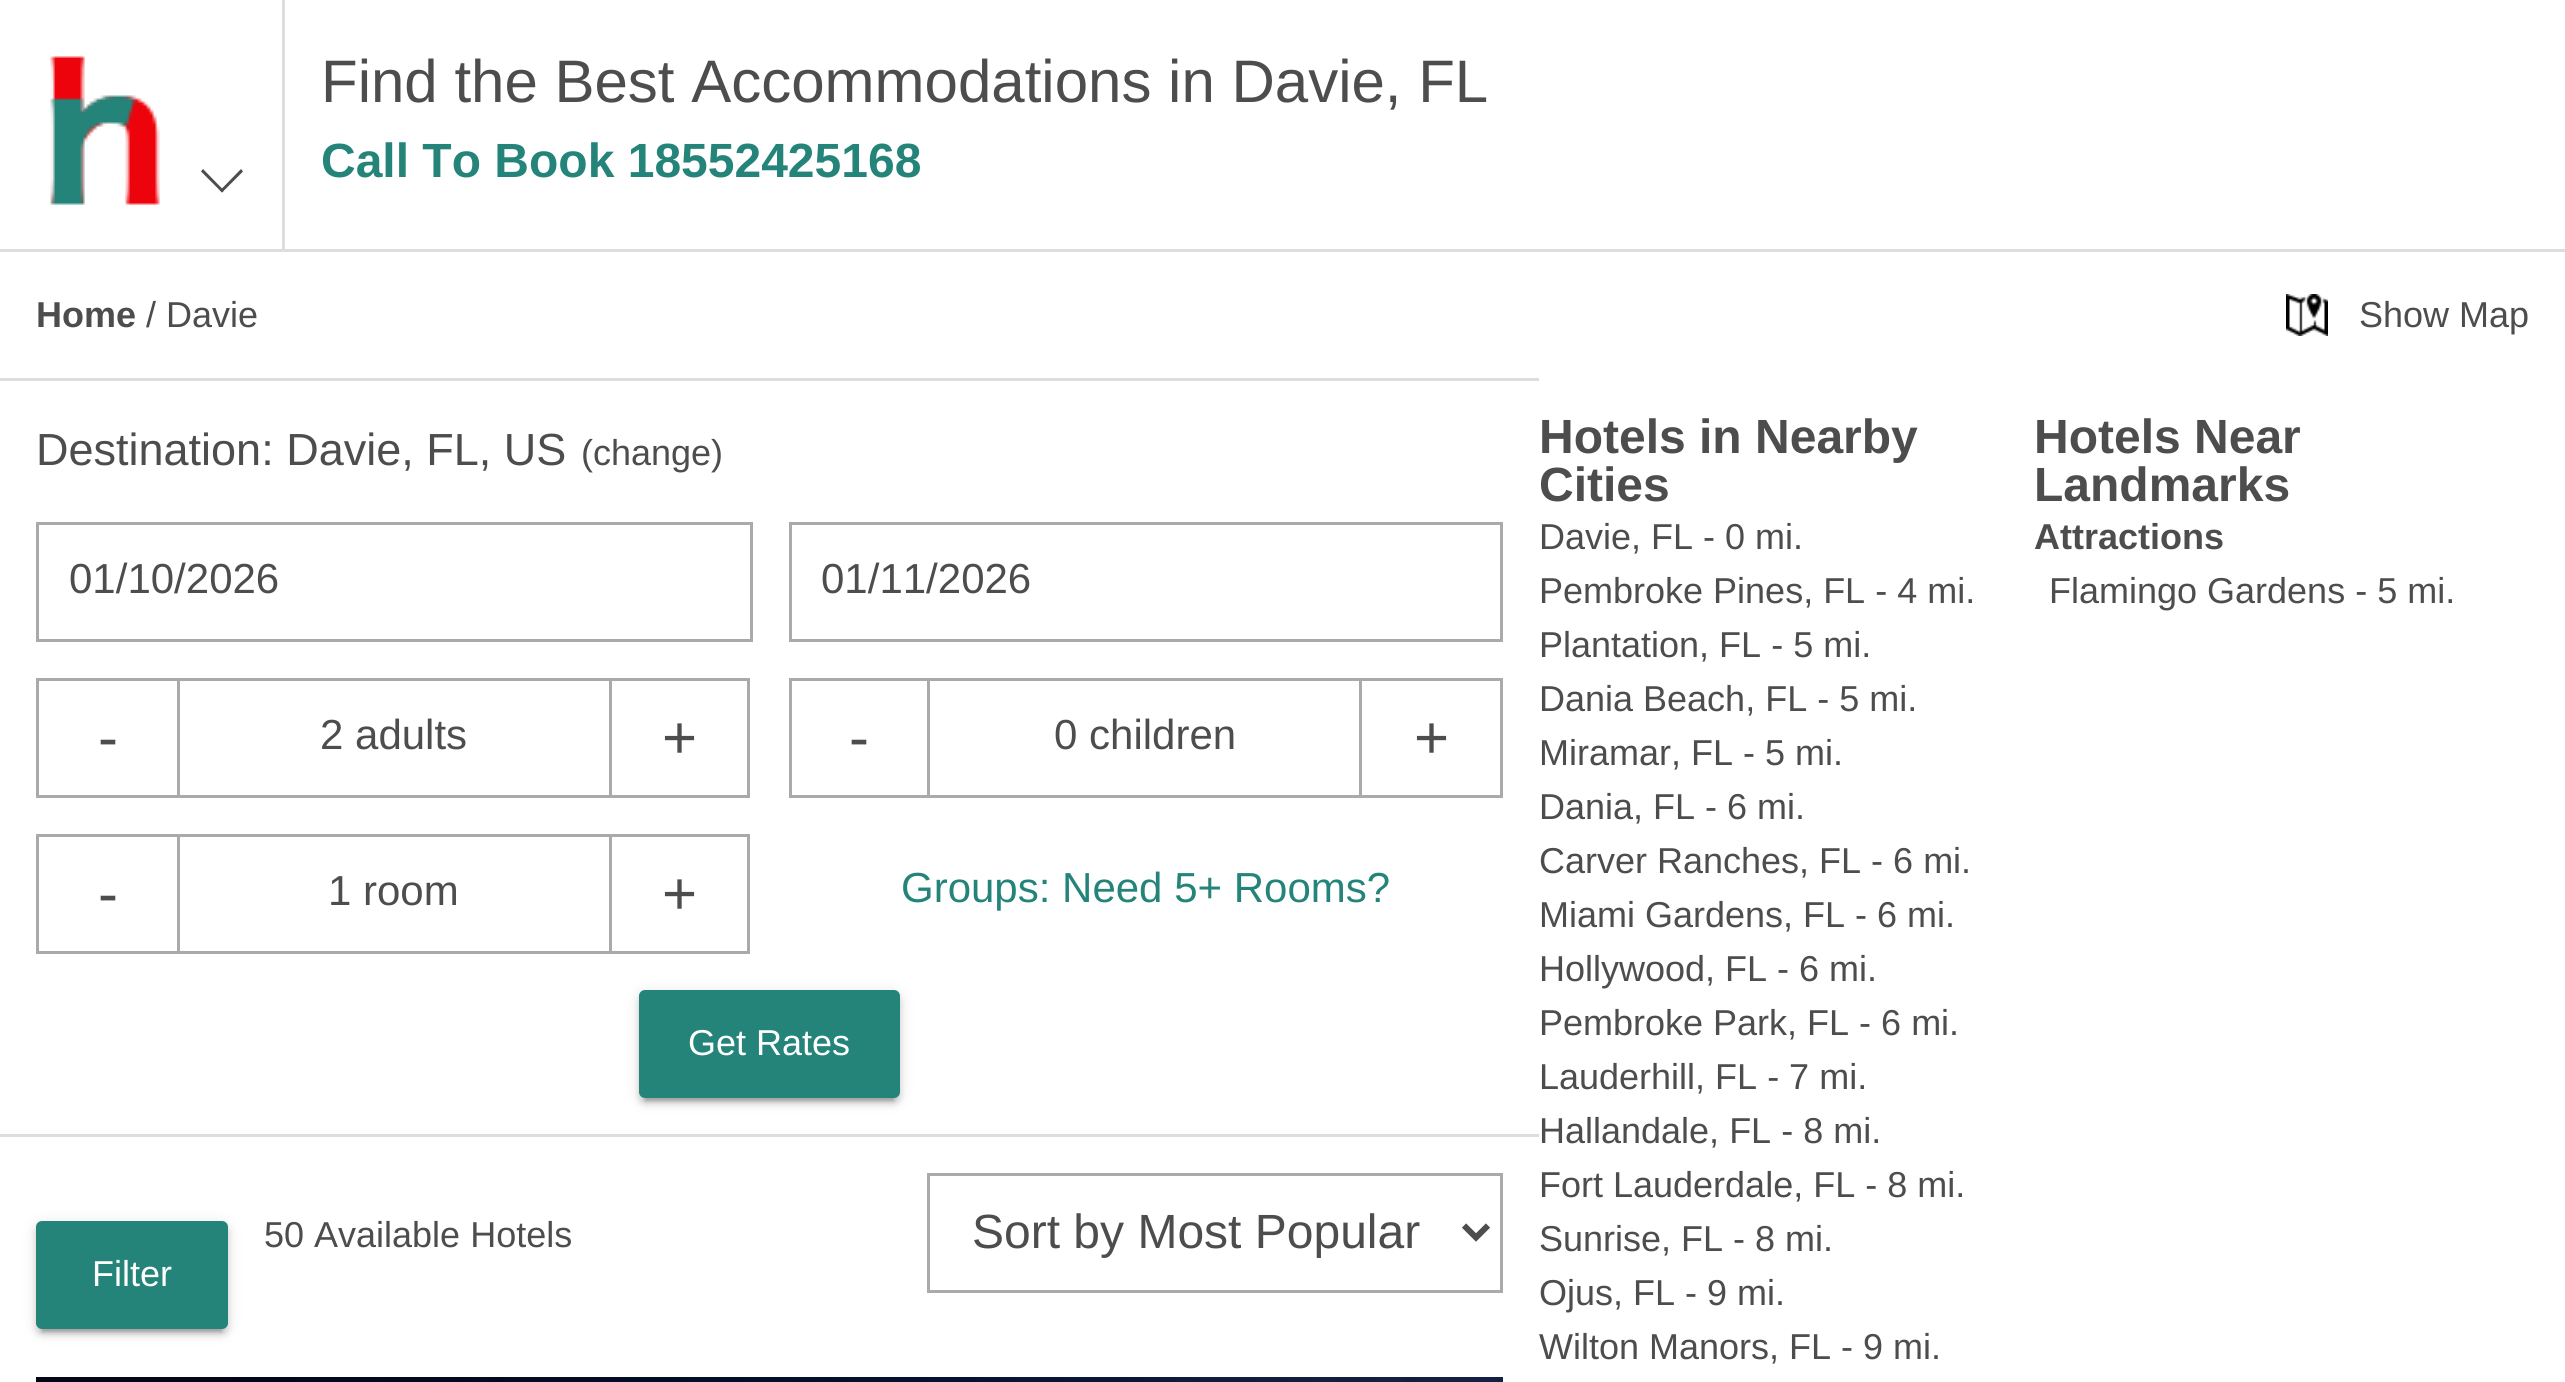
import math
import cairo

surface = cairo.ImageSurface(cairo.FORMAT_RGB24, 2565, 1382)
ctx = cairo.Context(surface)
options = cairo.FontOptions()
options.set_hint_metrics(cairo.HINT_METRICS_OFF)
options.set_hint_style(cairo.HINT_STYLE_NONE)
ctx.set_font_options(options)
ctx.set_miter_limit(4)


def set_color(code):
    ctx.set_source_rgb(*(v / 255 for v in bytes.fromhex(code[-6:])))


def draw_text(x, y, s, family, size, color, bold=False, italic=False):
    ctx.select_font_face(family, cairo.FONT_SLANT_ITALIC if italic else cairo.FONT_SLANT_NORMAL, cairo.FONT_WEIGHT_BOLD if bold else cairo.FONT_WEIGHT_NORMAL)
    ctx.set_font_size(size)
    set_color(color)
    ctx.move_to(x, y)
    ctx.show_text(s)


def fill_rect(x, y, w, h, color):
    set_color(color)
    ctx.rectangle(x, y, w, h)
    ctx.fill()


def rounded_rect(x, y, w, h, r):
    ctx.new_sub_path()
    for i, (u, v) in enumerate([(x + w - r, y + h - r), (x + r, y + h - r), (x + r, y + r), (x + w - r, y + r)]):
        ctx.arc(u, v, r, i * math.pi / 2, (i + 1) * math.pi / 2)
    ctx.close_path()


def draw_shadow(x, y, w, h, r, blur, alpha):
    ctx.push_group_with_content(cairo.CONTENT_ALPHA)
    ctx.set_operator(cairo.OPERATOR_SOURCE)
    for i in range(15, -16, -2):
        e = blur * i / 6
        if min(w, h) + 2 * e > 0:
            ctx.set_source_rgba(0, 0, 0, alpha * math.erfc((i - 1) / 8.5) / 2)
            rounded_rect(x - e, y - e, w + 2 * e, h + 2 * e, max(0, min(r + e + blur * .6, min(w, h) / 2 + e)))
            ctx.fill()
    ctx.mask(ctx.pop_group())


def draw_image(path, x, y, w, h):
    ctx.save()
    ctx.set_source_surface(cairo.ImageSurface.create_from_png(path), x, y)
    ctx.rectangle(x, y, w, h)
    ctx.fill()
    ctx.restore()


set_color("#ffffff")
ctx.paint()
fill_rect(0, 249, 2565, 3, "#dddddd")
fill_rect(282, 0, 3, 249, "#dddddd")
draw_image("assets/img1.png", 50, 56, 110, 149)
set_color("#4d4d4d")
ctx.new_path()
ctx.move_to(243, 171.5)
ctx.line_to(222, 192.5)
ctx.line_to(220, 190.5)
ctx.line_to(241, 169)
ctx.close_path()
ctx.fill()
ctx.new_path()
ctx.move_to(224, 190.5)
ctx.line_to(222, 192.5)
ctx.line_to(201, 171.5)
ctx.line_to(203, 169)
ctx.close_path()
ctx.fill()
draw_text(321, 102, "Find the Best Accommodations in Davie, FL", "Liberation Sans", 60, "#4d4d4d")
draw_text(321, 177, "Call To Book 18552425168", "Liberation Sans", 48, "#24847a", bold=True)
fill_rect(0, 378, 1539, 3, "#dddddd")
draw_text(36, 327, "Home", "Liberation Sans", 36, "#4d4d4d", bold=True)
draw_text(146, 327, "/ Davie", "Liberation Sans", 36, "#4d4d4d")
fill_rect(0, 1134, 1539, 3, "#dddddd")
draw_text(36, 465, "Destination: Davie, FL, US", "Liberation Sans", 45, "#4d4d4d")
draw_text(581, 465, "(change)", "Liberation Sans", 36, "#4d4d4d")
ctx.rectangle(37.5, 523.5, 714, 117)
set_color("#aaaaaa")
ctx.set_line_width(3)
ctx.stroke()
draw_text(69, 593, "01/10/2026", "Liberation Sans", 42, "#4d4d4d")
ctx.rectangle(790.5, 523.5, 711, 117)
set_color("#aaaaaa")
ctx.stroke()
draw_text(821, 593, "01/11/2026", "Liberation Sans", 42, "#4d4d4d")
ctx.rectangle(37.5, 679.5, 141, 117)
set_color("#aaaaaa")
ctx.stroke()
draw_text(98, 758, "-", "Liberation Sans", 60, "#4d4d4d")
fill_rect(180, 678, 429, 3, "#aaaaaa")
fill_rect(180, 795, 429, 3, "#aaaaaa")
draw_text(320, 749, "2 adults", "Liberation Sans", 42, "#4d4d4d")
ctx.rectangle(610.5, 679.5, 138, 117)
set_color("#aaaaaa")
ctx.stroke()
draw_text(662, 758, "+", "Liberation Sans", 60, "#4d4d4d")
ctx.rectangle(790.5, 679.5, 138, 117)
set_color("#aaaaaa")
ctx.stroke()
draw_text(849, 758, "-", "Liberation Sans", 60, "#4d4d4d")
fill_rect(930, 678, 429, 3, "#aaaaaa")
fill_rect(930, 795, 429, 3, "#aaaaaa")
draw_text(1054, 749, "0 children", "Liberation Sans", 42, "#4d4d4d")
ctx.rectangle(1360.5, 679.5, 141, 117)
set_color("#aaaaaa")
ctx.stroke()
draw_text(1414, 758, "+", "Liberation Sans", 60, "#4d4d4d")
ctx.rectangle(37.5, 835.5, 141, 117)
set_color("#aaaaaa")
ctx.stroke()
draw_text(98, 914, "-", "Liberation Sans", 60, "#4d4d4d")
fill_rect(180, 834, 429, 3, "#aaaaaa")
fill_rect(180, 951, 429, 3, "#aaaaaa")
draw_text(328, 905, "1 room", "Liberation Sans", 42, "#4d4d4d")
ctx.rectangle(610.5, 835.5, 138, 117)
set_color("#aaaaaa")
ctx.stroke()
draw_text(662, 914, "+", "Liberation Sans", 60, "#4d4d4d")
draw_text(901, 902, "Groups: Need 5+ Rooms?", "Liberation Sans", 42, "#24847a")
set_color("#000000")
draw_shadow(639, 993, 261, 108, 6, 7.5, 0.12)
draw_shadow(645, 1005, 249, 96, 0, 1.5, 0.2)
draw_shadow(639, 996, 261, 108, 6, 3, 0.14)
set_color("#24847a")
rounded_rect(639, 990, 261, 108, 6)
ctx.fill()
draw_text(688, 1055, "Get Rates", "Liberation Sans", 36, "#ffffff")
draw_text(264, 1247, "50 Available Hotels", "Liberation Sans", 36, "#4d4d4d")
ctx.rectangle(928.5, 1174.5, 573, 117)
set_color("#aaaaaa")
ctx.stroke()
ctx.new_path()
ctx.move_to(1464, 1225.5)
ctx.line_to(1476, 1237.5)
ctx.line_to(1488, 1225.5)
set_color("#4d4d4d")
ctx.set_line_width(6)
ctx.stroke()
draw_text(972, 1248, "Sort by Most Popular", "Liberation Sans", 48, "#4d4d4d")
set_color("#000000")
draw_shadow(36, 1224, 192, 108, 6, 7.5, 0.12)
draw_shadow(42, 1236, 180, 96, 0, 1.5, 0.2)
draw_shadow(36, 1227, 192, 108, 6, 3, 0.14)
set_color("#24847a")
rounded_rect(36, 1221, 192, 108, 6)
ctx.fill()
draw_text(92, 1286, "Filter", "Liberation Sans", 36, "#ffffff")
draw_image("assets/img2.png", 36, 1377, 1467, 5)
draw_image("assets/img3.png", 2286, 294, 42, 42)
draw_text(2359, 327, "Show Map", "Liberation Sans", 36, "#4d4d4d")
draw_text(1539, 453, "Hotels in Nearby", "Liberation Sans", 48, "#4d4d4d", bold=True)
draw_text(1539, 501, "Cities", "Liberation Sans", 48, "#4d4d4d", bold=True)
draw_text(1539, 549, "Davie, FL - 0 mi.", "Liberation Sans", 36, "#4d4d4d")
draw_text(1539, 603, "Pembroke Pines, FL - 4 mi.", "Liberation Sans", 36, "#4d4d4d")
draw_text(1539, 657, "Plantation, FL - 5 mi.", "Liberation Sans", 36, "#4d4d4d")
draw_text(1539, 711, "Dania Beach, FL - 5 mi.", "Liberation Sans", 36, "#4d4d4d")
draw_text(1539, 765, "Miramar, FL - 5 mi.", "Liberation Sans", 36, "#4d4d4d")
draw_text(1539, 819, "Dania, FL - 6 mi.", "Liberation Sans", 36, "#4d4d4d")
draw_text(1539, 873, "Carver Ranches, FL - 6 mi.", "Liberation Sans", 36, "#4d4d4d")
draw_text(1539, 927, "Miami Gardens, FL - 6 mi.", "Liberation Sans", 36, "#4d4d4d")
draw_text(1539, 981, "Hollywood, FL - 6 mi.", "Liberation Sans", 36, "#4d4d4d")
draw_text(1539, 1035, "Pembroke Park, FL - 6 mi.", "Liberation Sans", 36, "#4d4d4d")
draw_text(1539, 1089, "Lauderhill, FL - 7 mi.", "Liberation Sans", 36, "#4d4d4d")
draw_text(1539, 1143, "Hallandale, FL - 8 mi.", "Liberation Sans", 36, "#4d4d4d")
draw_text(1539, 1197, "Fort Lauderdale, FL - 8 mi.", "Liberation Sans", 36, "#4d4d4d")
draw_text(1539, 1251, "Sunrise, FL - 8 mi.", "Liberation Sans", 36, "#4d4d4d")
draw_text(1539, 1305, "Ojus, FL - 9 mi.", "Liberation Sans", 36, "#4d4d4d")
draw_text(1539, 1359, "Wilton Manors, FL - 9 mi.", "Liberation Sans", 36, "#4d4d4d")
draw_text(2034, 453, "Hotels Near", "Liberation Sans", 48, "#4d4d4d", bold=True)
draw_text(2034, 501, "Landmarks", "Liberation Sans", 48, "#4d4d4d", bold=True)
draw_text(2034, 549, "Attractions", "Liberation Sans", 36, "#4d4d4d", bold=True)
draw_text(2049, 603, "Flamingo Gardens - 5 mi.", "Liberation Sans", 36, "#4d4d4d")
surface.write_to_png("output.png")
